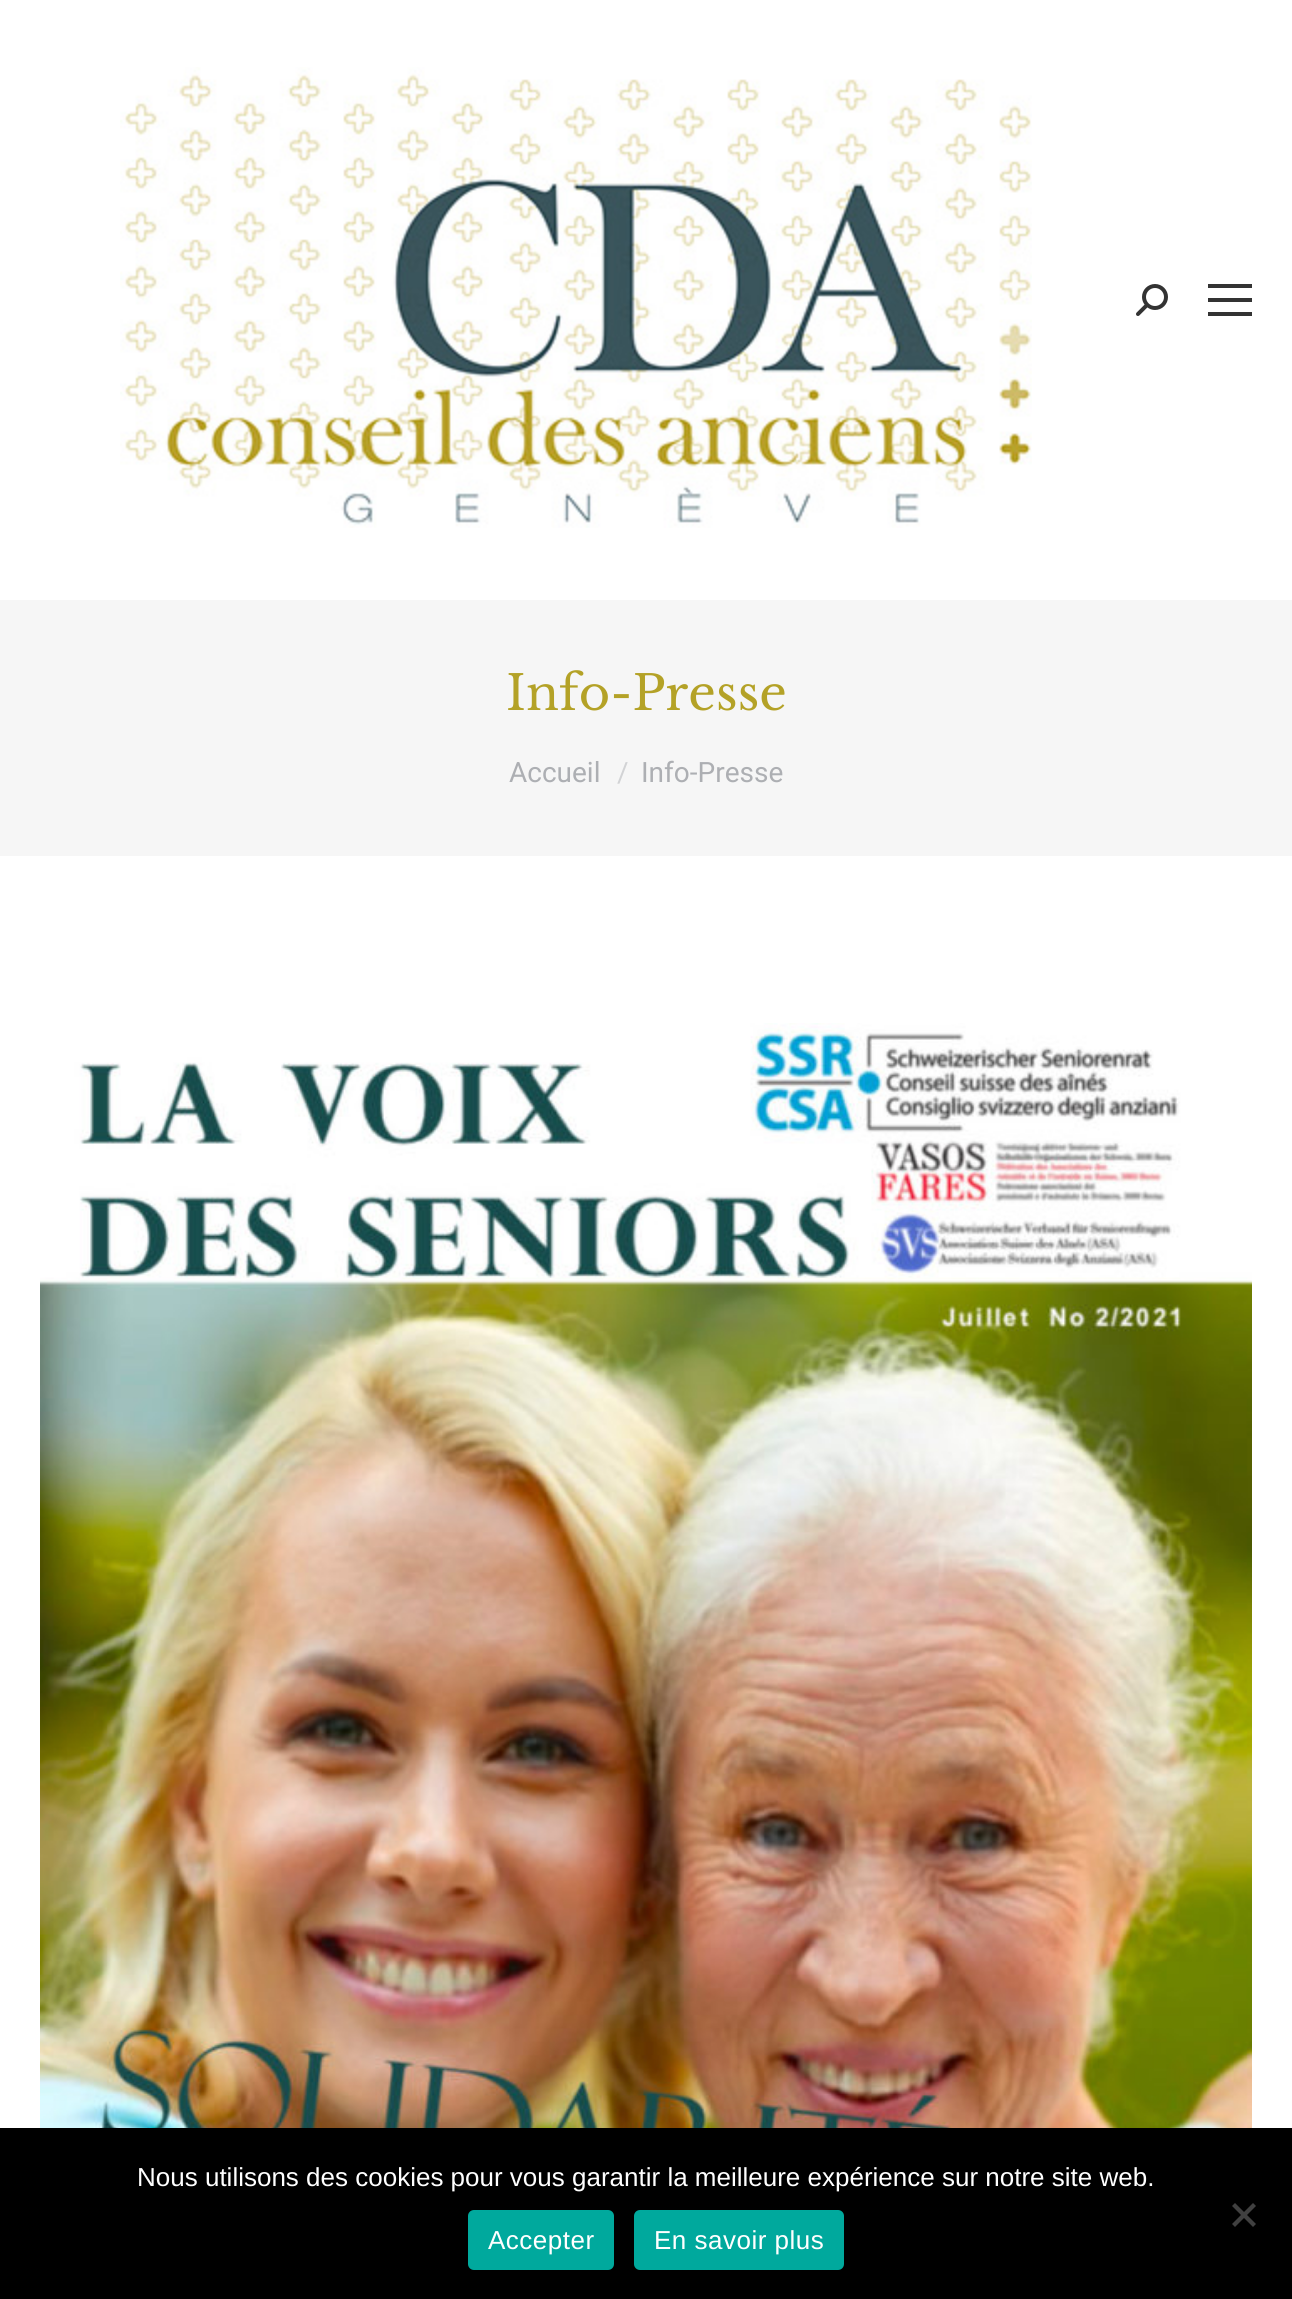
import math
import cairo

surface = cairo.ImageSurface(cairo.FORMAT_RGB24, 1292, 2299)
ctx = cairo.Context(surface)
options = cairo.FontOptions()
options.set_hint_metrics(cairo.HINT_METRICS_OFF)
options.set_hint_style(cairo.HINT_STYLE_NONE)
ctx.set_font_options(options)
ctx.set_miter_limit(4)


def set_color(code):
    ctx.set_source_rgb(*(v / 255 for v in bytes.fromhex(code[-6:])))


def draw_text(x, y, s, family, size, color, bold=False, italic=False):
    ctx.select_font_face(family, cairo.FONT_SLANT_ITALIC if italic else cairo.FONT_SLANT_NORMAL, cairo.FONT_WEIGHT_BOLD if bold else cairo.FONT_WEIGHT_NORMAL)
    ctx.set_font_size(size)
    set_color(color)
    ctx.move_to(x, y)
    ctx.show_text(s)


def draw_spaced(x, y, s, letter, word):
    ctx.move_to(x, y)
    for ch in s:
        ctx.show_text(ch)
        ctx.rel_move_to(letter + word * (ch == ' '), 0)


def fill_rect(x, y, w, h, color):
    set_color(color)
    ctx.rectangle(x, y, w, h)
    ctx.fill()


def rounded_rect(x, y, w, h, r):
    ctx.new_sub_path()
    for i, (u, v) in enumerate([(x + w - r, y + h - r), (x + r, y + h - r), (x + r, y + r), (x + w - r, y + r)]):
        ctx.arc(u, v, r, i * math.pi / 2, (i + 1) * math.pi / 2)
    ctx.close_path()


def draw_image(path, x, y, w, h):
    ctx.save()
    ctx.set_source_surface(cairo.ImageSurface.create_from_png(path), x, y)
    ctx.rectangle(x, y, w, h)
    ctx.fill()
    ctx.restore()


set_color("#ffffff")
ctx.paint()
draw_image("assets/img1.png", 120, 67, 912, 461)
draw_image("assets/img2.png", 1136, 284, 32, 32)
fill_rect(1208, 298, 44, 4, "#333333")
fill_rect(1208, 284, 44, 4, "#333333")
fill_rect(1208, 312, 44, 4, "#333333")
fill_rect(0, 600, 1292, 256, "#f6f6f6")
draw_text(506, 710, "Info-Presse", "Libre Baskerville", 48, "#b4a227")
draw_text(509, 782, "Accueil", "Roboto", 28, "#adafb3")
draw_text(617, 782, "/", "Roboto", 28, "#d2d3d5")
draw_text(641, 782, "Info-Presse", "Roboto", 28, "#adafb3")
draw_image("assets/img3.png", 40, 1023, 1212, 1105)
fill_rect(0, 2128, 1292, 171, "#000000")
draw_text(137, 2186, "Nous utilisons des cookies pour vous garantir la meilleure expérience sur notre site web.", "Liberation Sans", 26, "#ffffff")
set_color("#404040")
ctx.new_path()
ctx.move_to(1253, 2203)
ctx.line_to(1256, 2206)
ctx.line_to(1235, 2227)
ctx.line_to(1232, 2224)
ctx.close_path()
ctx.fill()
ctx.new_path()
ctx.move_to(1232, 2206)
ctx.line_to(1235, 2203)
ctx.line_to(1256, 2224)
ctx.line_to(1253, 2227)
ctx.close_path()
ctx.fill()
set_color("#00a99d")
rounded_rect(468, 2210, 146, 60, 6)
ctx.fill()
set_color("#ffffff")
draw_spaced(488, 2249, "Accepter", 0.5, 0)
set_color("#00a99d")
rounded_rect(634, 2210, 210, 60, 6)
ctx.fill()
set_color("#ffffff")
draw_spaced(654, 2249, "En savoir plus", 0.5, 0)
surface.write_to_png("output.png")
